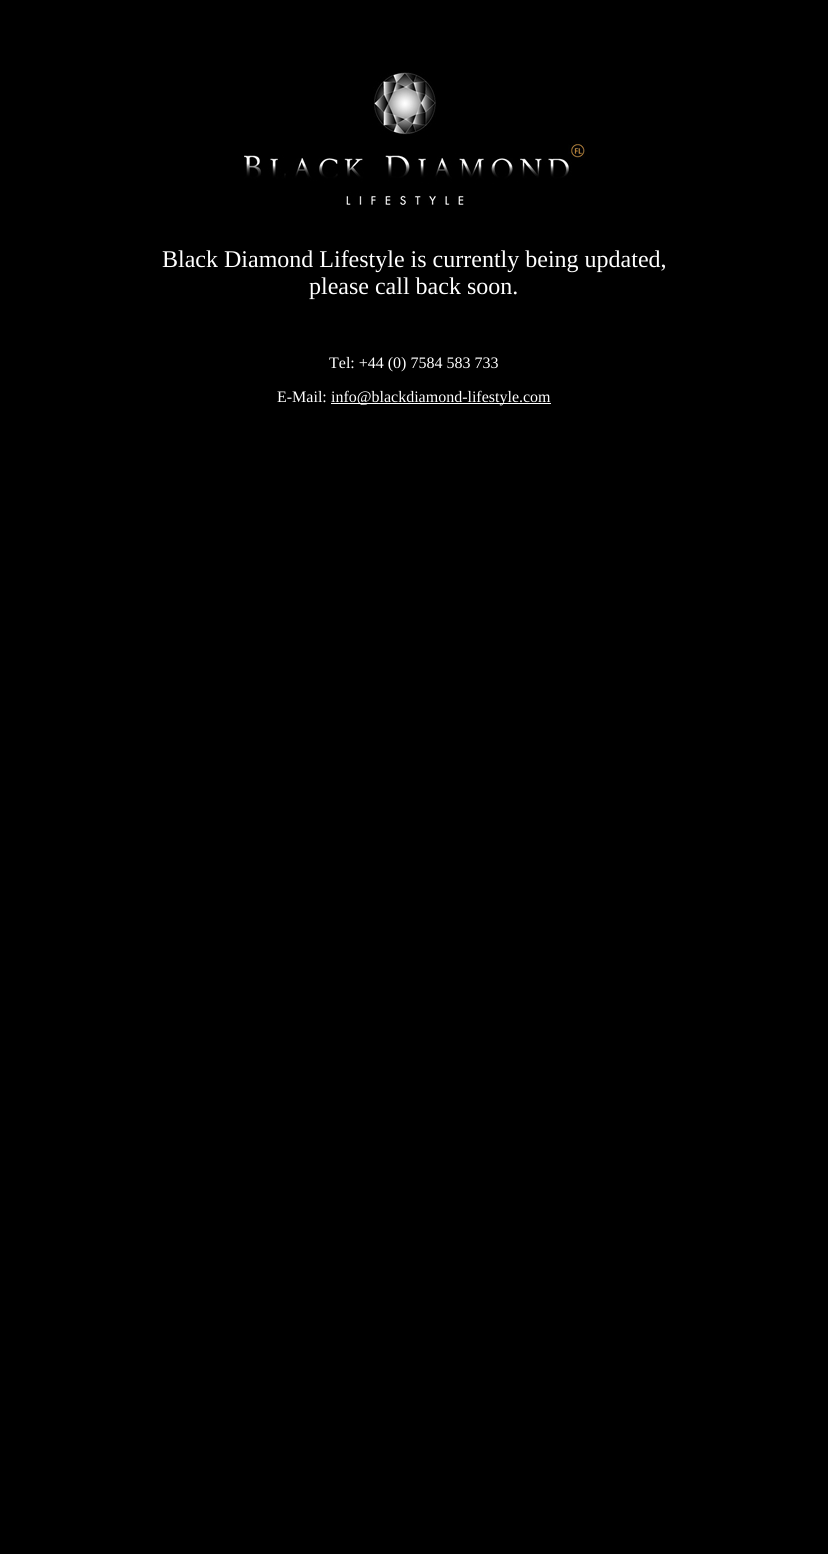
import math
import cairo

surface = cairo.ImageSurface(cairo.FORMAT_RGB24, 828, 1554)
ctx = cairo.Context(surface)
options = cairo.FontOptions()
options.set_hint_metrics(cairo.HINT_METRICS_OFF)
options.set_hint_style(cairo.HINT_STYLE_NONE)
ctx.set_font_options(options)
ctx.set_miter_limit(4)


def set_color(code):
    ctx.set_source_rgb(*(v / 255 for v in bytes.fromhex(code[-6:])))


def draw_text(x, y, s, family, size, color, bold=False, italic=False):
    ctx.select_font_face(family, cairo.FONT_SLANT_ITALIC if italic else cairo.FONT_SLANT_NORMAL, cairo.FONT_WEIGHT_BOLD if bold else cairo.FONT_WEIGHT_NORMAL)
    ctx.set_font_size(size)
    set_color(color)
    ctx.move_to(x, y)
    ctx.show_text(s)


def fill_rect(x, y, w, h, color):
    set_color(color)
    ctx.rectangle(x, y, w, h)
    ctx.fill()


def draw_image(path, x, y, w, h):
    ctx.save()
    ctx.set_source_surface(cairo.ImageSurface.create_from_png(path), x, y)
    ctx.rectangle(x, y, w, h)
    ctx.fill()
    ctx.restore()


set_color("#000000")
ctx.paint()
draw_image("assets/img1.png", 244, 72, 341, 133)
draw_text(162, 267, "Black Diamond Lifestyle is currently being updated,", "Liberation Serif", 24, "#ffffff")
draw_text(309, 294, "please call back soon.", "Liberation Serif", 24, "#ffffff")
draw_text(329, 368, "Tel: +44 (0) 7584 583 733", "Liberation Serif", 16, "#ffffff")
draw_text(277, 402, "E-Mail:", "Liberation Serif", 16, "#ffffff")
fill_rect(331, 403, 220, 1, "#ffffff")
draw_text(331, 402, "info@blackdiamond-lifestyle.com", "Liberation Serif", 16, "#ffffff")
surface.write_to_png("output.png")
